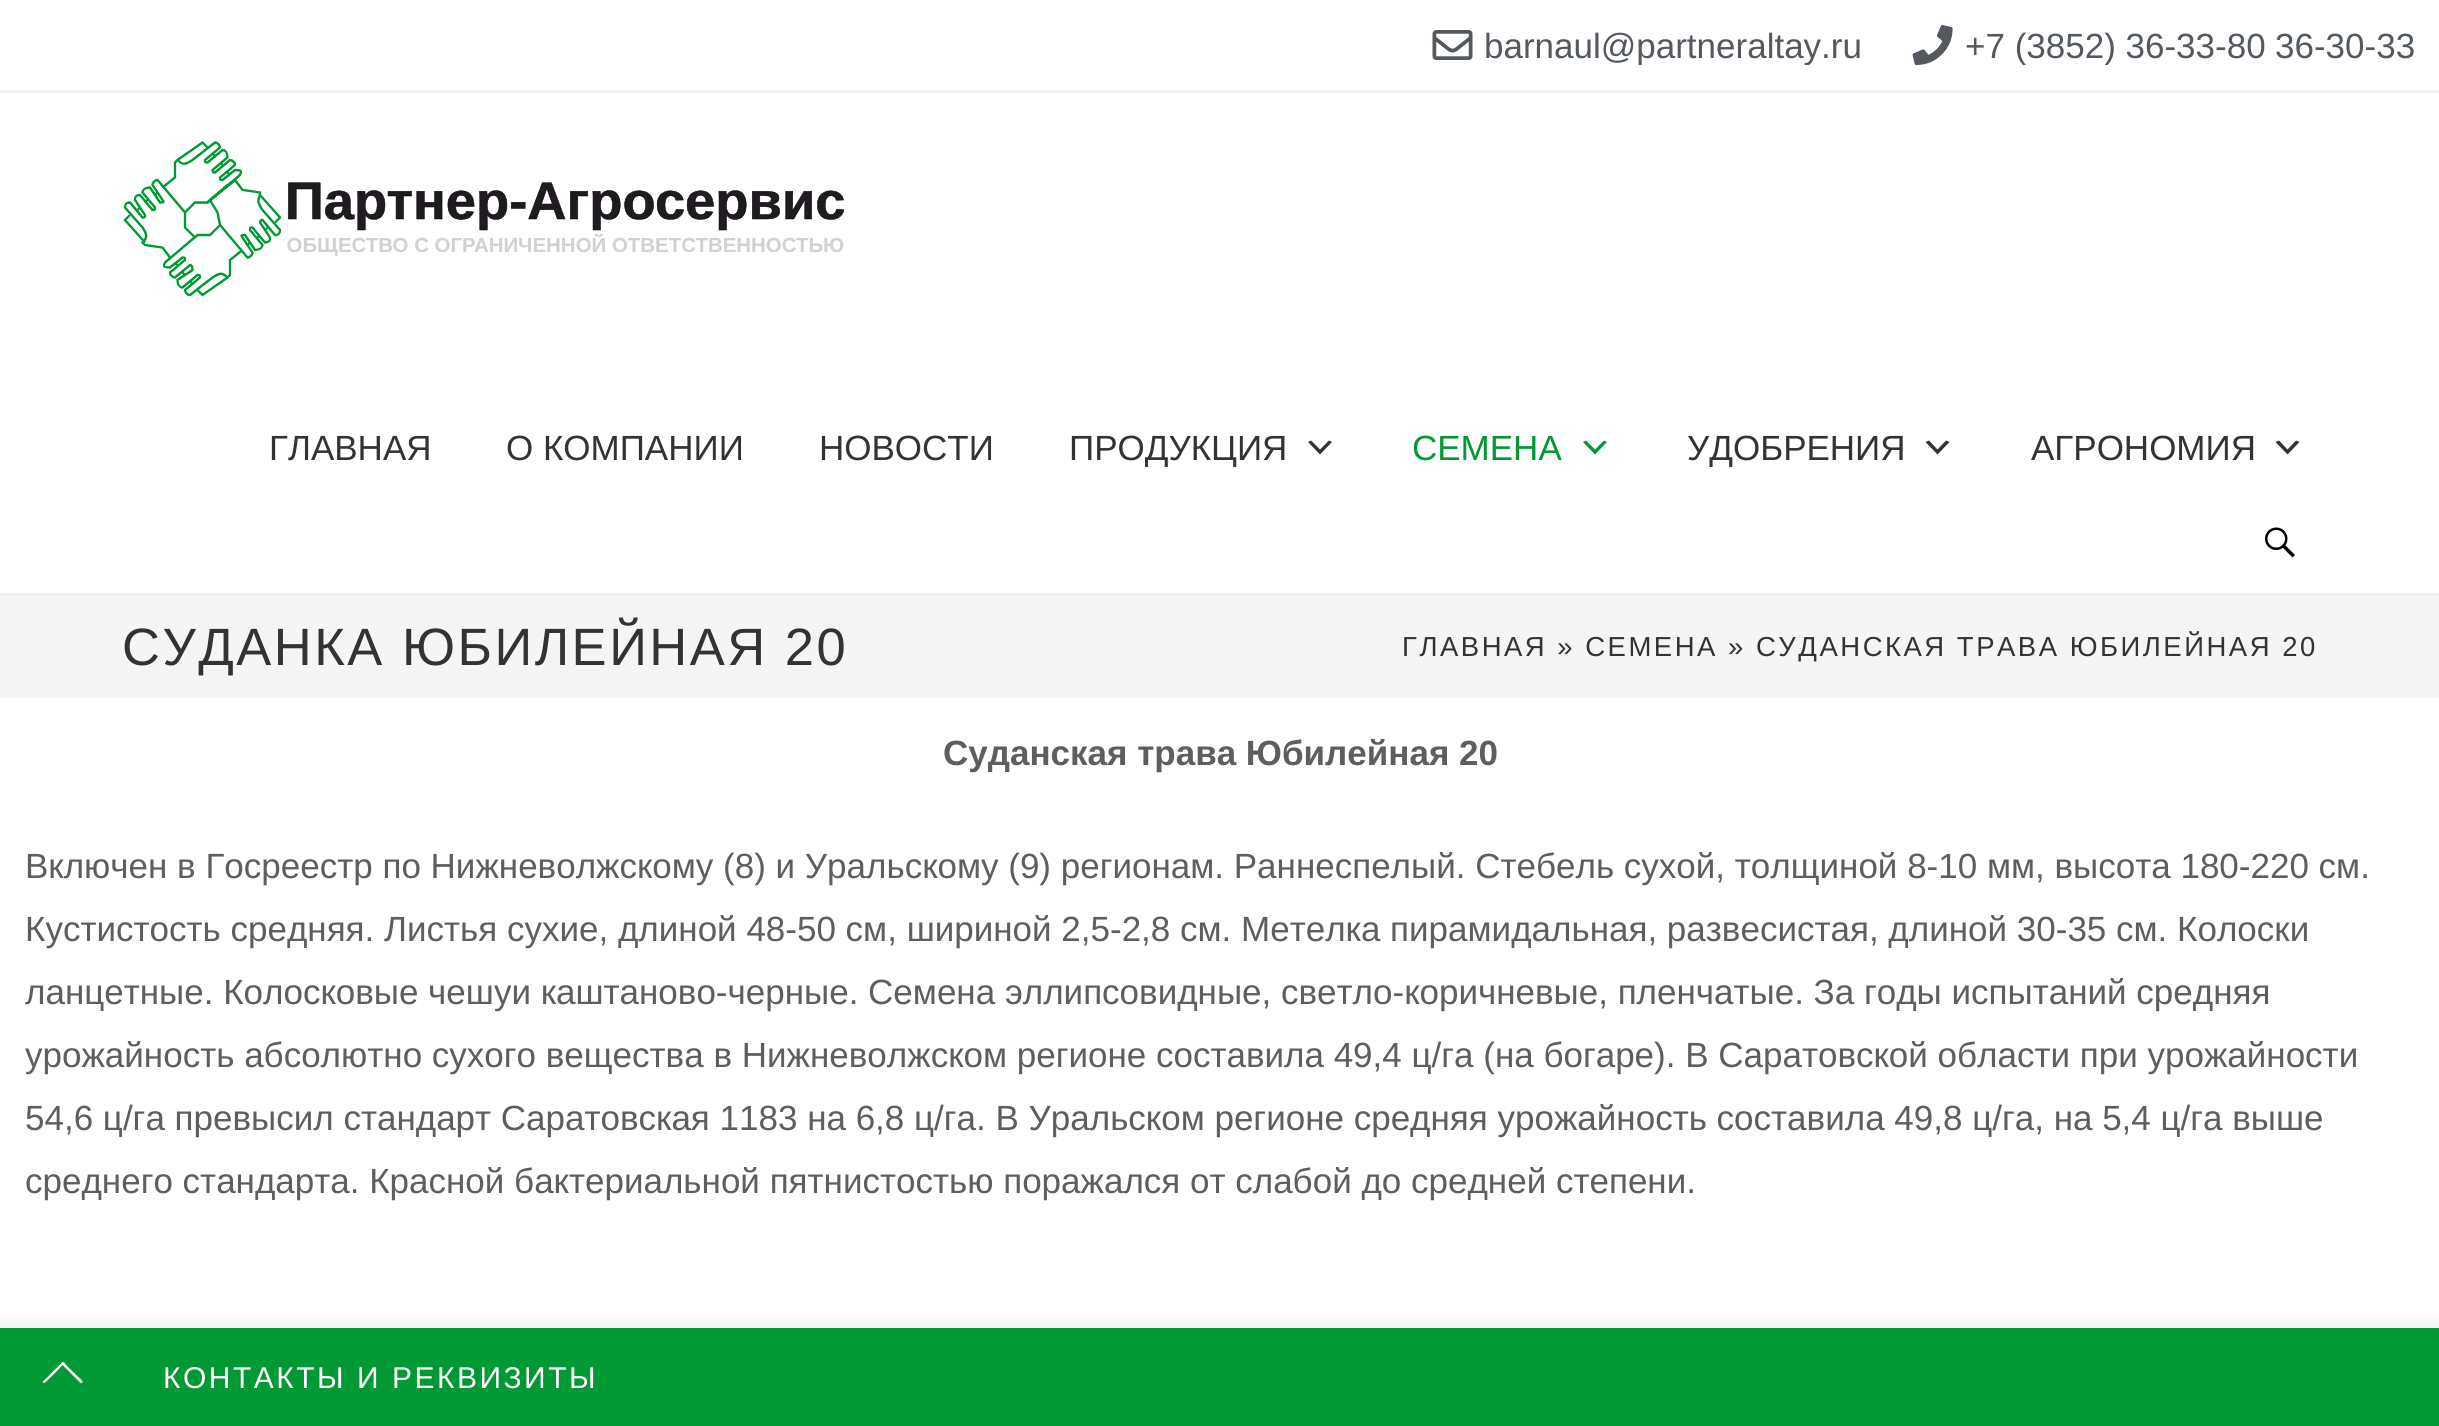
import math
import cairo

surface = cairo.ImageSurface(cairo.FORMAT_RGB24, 2439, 1426)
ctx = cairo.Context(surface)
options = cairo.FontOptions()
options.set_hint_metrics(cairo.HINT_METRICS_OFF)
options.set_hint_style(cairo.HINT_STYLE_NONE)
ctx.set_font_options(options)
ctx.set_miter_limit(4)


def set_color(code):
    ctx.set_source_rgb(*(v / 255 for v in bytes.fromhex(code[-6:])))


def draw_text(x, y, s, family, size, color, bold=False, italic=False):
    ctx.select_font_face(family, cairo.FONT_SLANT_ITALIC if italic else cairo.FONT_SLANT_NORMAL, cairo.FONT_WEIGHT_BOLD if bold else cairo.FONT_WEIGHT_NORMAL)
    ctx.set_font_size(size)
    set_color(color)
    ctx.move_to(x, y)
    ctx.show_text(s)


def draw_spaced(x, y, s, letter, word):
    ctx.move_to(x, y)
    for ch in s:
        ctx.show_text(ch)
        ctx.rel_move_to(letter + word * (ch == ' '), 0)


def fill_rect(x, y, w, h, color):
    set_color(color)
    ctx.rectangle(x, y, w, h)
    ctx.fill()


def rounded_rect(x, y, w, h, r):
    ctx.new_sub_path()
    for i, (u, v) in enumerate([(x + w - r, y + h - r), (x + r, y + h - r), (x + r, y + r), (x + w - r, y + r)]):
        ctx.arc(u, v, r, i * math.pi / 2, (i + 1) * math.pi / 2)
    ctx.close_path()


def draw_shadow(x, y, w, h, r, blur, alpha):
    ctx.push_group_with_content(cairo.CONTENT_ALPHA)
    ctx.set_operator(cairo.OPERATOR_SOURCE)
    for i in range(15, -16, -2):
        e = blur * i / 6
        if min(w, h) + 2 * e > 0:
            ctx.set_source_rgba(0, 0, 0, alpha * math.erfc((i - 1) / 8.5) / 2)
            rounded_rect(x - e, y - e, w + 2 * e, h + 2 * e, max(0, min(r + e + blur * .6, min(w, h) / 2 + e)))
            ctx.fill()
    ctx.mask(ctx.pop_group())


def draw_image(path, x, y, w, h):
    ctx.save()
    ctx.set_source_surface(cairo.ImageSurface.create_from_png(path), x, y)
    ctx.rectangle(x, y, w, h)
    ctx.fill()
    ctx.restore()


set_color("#ffffff")
ctx.paint()
fill_rect(0, 90, 2439, 3, "#f1f1f1")
draw_image("assets/img1.png", 1432, 30, 41, 30)
ctx.save()
ctx.rectangle(25, 25, 2390, 40)
ctx.clip()
draw_text(1484, 58, "barnaul@partneraltay.ru", "Liberation Sans", 35, "#54595f")
ctx.restore()
draw_image("assets/img2.png", 1912, 25, 41, 40)
ctx.save()
ctx.rectangle(25, 25, 2390, 40)
ctx.clip()
draw_text(1965, 58, "+7 (3852) 36-33-80", "Liberation Sans", 35, "#54595f")
ctx.restore()
draw_text(2275, 58, "36-30-33", "Liberation Sans", 35, "#54595f")
fill_rect(0, 593, 2439, 3, "#f1f1f1")
draw_image("assets/img3.png", 123, 141, 722, 156)
draw_text(269, 460, "ГЛАВНАЯ", "Liberation Sans", 35, "#333333")
draw_text(506, 460, "О КОМПАНИИ", "Liberation Sans", 35, "#333333")
draw_text(819, 460, "НОВОСТИ", "Liberation Sans", 35, "#333333")
draw_text(1069, 460, "ПРОДУКЦИЯ", "Liberation Sans", 35, "#333333")
ctx.new_path()
ctx.move_to(1311, 440.5)
ctx.line_to(1320, 449.5)
ctx.line_to(1329, 440.5)
ctx.line_to(1332, 442)
ctx.line_to(1320, 454.5)
ctx.line_to(1308, 442)
ctx.close_path()
ctx.fill()
draw_text(1412, 460, "СЕМЕНА", "Liberation Sans", 35, "#009933")
ctx.new_path()
ctx.move_to(1586, 440.5)
ctx.line_to(1595, 449.5)
ctx.line_to(1604, 440.5)
ctx.line_to(1607, 442)
ctx.line_to(1595, 454.5)
ctx.line_to(1583, 442)
ctx.close_path()
ctx.fill()
draw_text(1687, 460, "УДОБРЕНИЯ", "Liberation Sans", 35, "#333333")
ctx.new_path()
ctx.move_to(1929, 440.5)
ctx.line_to(1937.5, 449.5)
ctx.line_to(1946, 440.5)
ctx.line_to(1949.5, 442)
ctx.line_to(1937.5, 454.5)
ctx.line_to(1925.5, 442)
ctx.close_path()
ctx.fill()
draw_text(2031, 460, "АГРОНОМИЯ", "Liberation Sans", 35, "#333333")
ctx.new_path()
ctx.move_to(2279, 440.5)
ctx.line_to(2287.5, 449.5)
ctx.line_to(2296, 440.5)
ctx.line_to(2299.5, 442)
ctx.line_to(2287.5, 454.5)
ctx.line_to(2275.5, 442)
ctx.close_path()
ctx.fill()
draw_image("assets/img4.png", 2265, 527, 30, 31)
fill_rect(0, 596, 2439, 102, "#f5f5f5")
ctx.set_font_size(52.5)
set_color("#333333")
draw_spaced(122, 665, "СУДАНКА ЮБИЛЕЙНАЯ 20", 2.5, 0)
ctx.set_font_size(27.5)
draw_spaced(1402, 656, "ГЛАВНАЯ » СЕМЕНА » СУДАНСКАЯ ТРАВА ЮБИЛЕЙНАЯ 20", 2.5, 0)
draw_text(943, 765, "Суданская трава Юбилейная 20", "Liberation Sans", 35, "#5e5e5e", bold=True)
draw_text(25, 878, "Включен в Госреестр по Нижневолжскому (8) и Уральскому (9) регионам. Раннеспелый. Стебель сухой, толщиной 8-10 мм, высота 180-220 см.", "Liberation Sans", 35, "#5e5e5e")
draw_text(25, 941, "Кустистость средняя. Листья сухие, длиной 48-50 см, шириной 2,5-2,8 см. Метелка пирамидальная, развесистая, длиной 30-35 см. Колоски", "Liberation Sans", 35, "#5e5e5e")
draw_text(25, 1004, "ланцетные. Колосковые чешуи каштаново-черные. Семена эллипсовидные, светло-коричневые, пленчатые. За годы испытаний средняя", "Liberation Sans", 35, "#5e5e5e")
draw_text(25, 1067, "урожайность абсолютно сухого вещества в Нижневолжском регионе составила 49,4 ц/га (на богаре). В Саратовской области при урожайности", "Liberation Sans", 35, "#5e5e5e")
draw_text(25, 1130, "54,6 ц/га превысил стандарт Саратовская 1183 на 6,8 ц/га. В Уральском регионе средняя урожайность составила 49,8 ц/га, на 5,4 ц/га выше", "Liberation Sans", 35, "#5e5e5e")
draw_text(25, 1193, "среднего стандарта. Красной бактериальной пятнистостью поражался от слабой до средней степени.", "Liberation Sans", 35, "#5e5e5e")
set_color("#000000")
draw_shadow(0, 1328, 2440, 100, 0, 10, 0.1)
fill_rect(0, 1328, 2439, 98, "#009933")
set_color("#ffffff")
ctx.new_path()
ctx.move_to(43, 1381.5)
ctx.curve_to(42.5, 1382, 43, 1383, 44, 1383)
ctx.curve_to(45.5, 1383, 60.5, 1367.5, 62.5, 1365)
ctx.line_to(80.5, 1383)
ctx.curve_to(82, 1383.5, 83, 1381.5, 82, 1380.5)
ctx.line_to(66.5, 1365.5)
ctx.curve_to(66.5, 1365.5, 63.5, 1360.5, 62, 1362.5)
ctx.close_path()
ctx.fill()
ctx.set_font_size(30)
draw_spaced(163, 1388, "КОНТАКТЫ И РЕКВИЗИТЫ", 2.5, 0)
surface.write_to_png("output.png")
